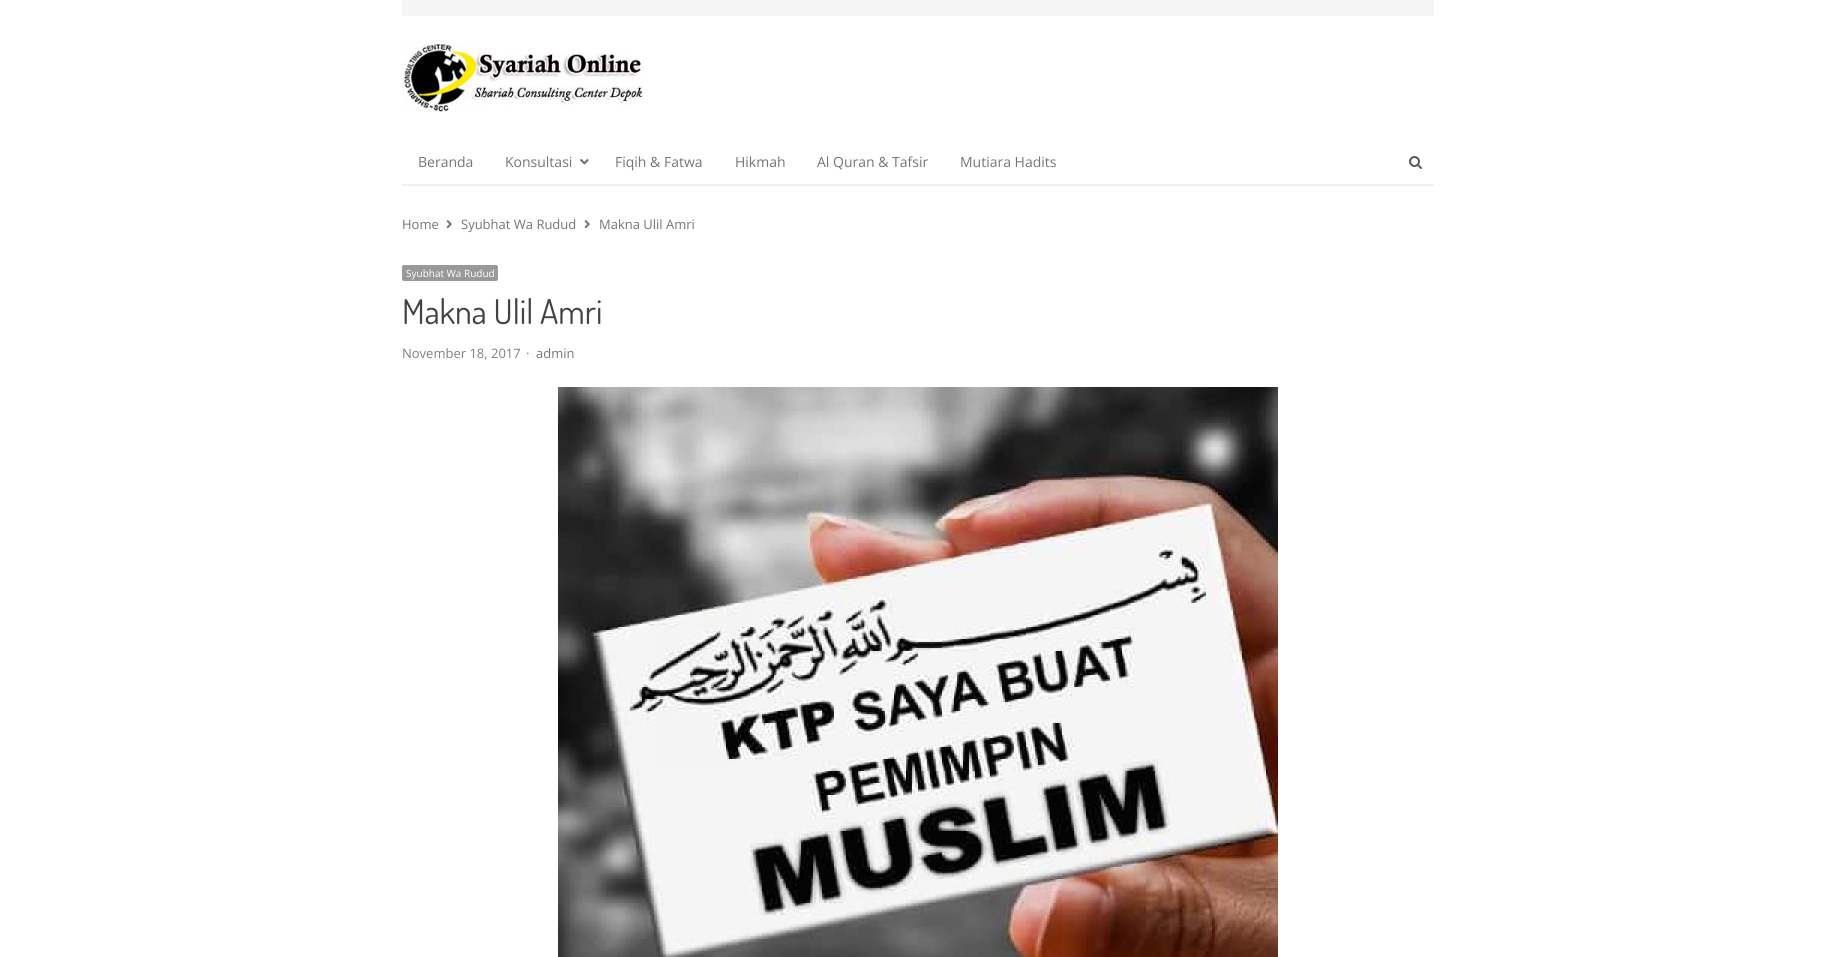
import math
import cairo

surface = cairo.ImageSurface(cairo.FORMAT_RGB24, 1835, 957)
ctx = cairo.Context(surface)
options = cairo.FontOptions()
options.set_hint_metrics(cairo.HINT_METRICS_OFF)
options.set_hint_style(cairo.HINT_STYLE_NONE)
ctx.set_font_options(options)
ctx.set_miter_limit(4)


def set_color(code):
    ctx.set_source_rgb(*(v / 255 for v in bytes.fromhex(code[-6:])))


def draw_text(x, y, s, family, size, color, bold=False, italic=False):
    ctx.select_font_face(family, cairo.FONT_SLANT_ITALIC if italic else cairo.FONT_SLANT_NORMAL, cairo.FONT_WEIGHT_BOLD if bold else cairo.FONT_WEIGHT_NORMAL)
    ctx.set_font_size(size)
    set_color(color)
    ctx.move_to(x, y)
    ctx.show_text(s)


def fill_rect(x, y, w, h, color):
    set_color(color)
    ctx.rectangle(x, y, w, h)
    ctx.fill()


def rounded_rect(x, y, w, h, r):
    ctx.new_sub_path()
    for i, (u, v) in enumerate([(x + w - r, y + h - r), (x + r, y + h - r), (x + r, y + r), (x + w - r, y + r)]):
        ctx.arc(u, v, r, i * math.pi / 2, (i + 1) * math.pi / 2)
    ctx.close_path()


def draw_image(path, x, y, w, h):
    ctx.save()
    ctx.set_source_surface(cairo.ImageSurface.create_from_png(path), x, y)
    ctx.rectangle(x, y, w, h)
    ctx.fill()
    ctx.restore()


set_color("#ffffff")
ctx.paint()
fill_rect(402, 0, 1032, 16, "#f5f5f5")
draw_image("assets/img1.png", 402, 40, 242, 72)
fill_rect(402, 184, 1032, 2, "#f0f0f0")
draw_text(418, 167, "Beranda", "Open Sans", 14, "#757575")
draw_text(505, 167, "Konsultasi", "Open Sans", 14, "#757575")
draw_image("assets/img2.png", 580, 159, 9, 6)
draw_text(615, 167, "Fiqih & Fatwa", "Open Sans", 14, "#757575")
draw_text(735, 167, "Hikmah", "Open Sans", 14, "#757575")
draw_text(817, 167, "Al Quran & Tafsir", "Open Sans", 14, "#757575")
draw_text(960, 167, "Mutiara Hadits", "Open Sans", 14, "#757575")
draw_image("assets/img3.png", 1409, 156, 13, 13)
draw_text(402, 229, "Home", "Open Sans", 13, "#757575")
draw_image("assets/img4.png", 446, 220, 6, 9)
draw_text(461, 229, "Syubhat Wa Rudud", "Open Sans", 13, "#757575")
draw_image("assets/img4.png", 584, 220, 6, 9)
draw_text(599, 229, "Makna Ulil Amri", "Open Sans", 13, "#757575")
set_color("#999999")
rounded_rect(402, 265, 96, 16, 2)
ctx.fill()
draw_text(406, 277, "Syubhat Wa Rudud", "Open Sans", 10, "#ffffff")
draw_text(402, 324, "Makna Ulil Amri", "Dosis", 34, "#424242")
draw_text(402, 358, "November 18, 2017", "Open Sans", 13, "#808080")
draw_text(526, 358, "·", "Open Sans", 13, "#808080")
draw_text(536, 358, "admin", "Open Sans", 13, "#757575")
draw_image("assets/img5.png", 558, 387, 720, 570)
surface.write_to_png("output.png")
